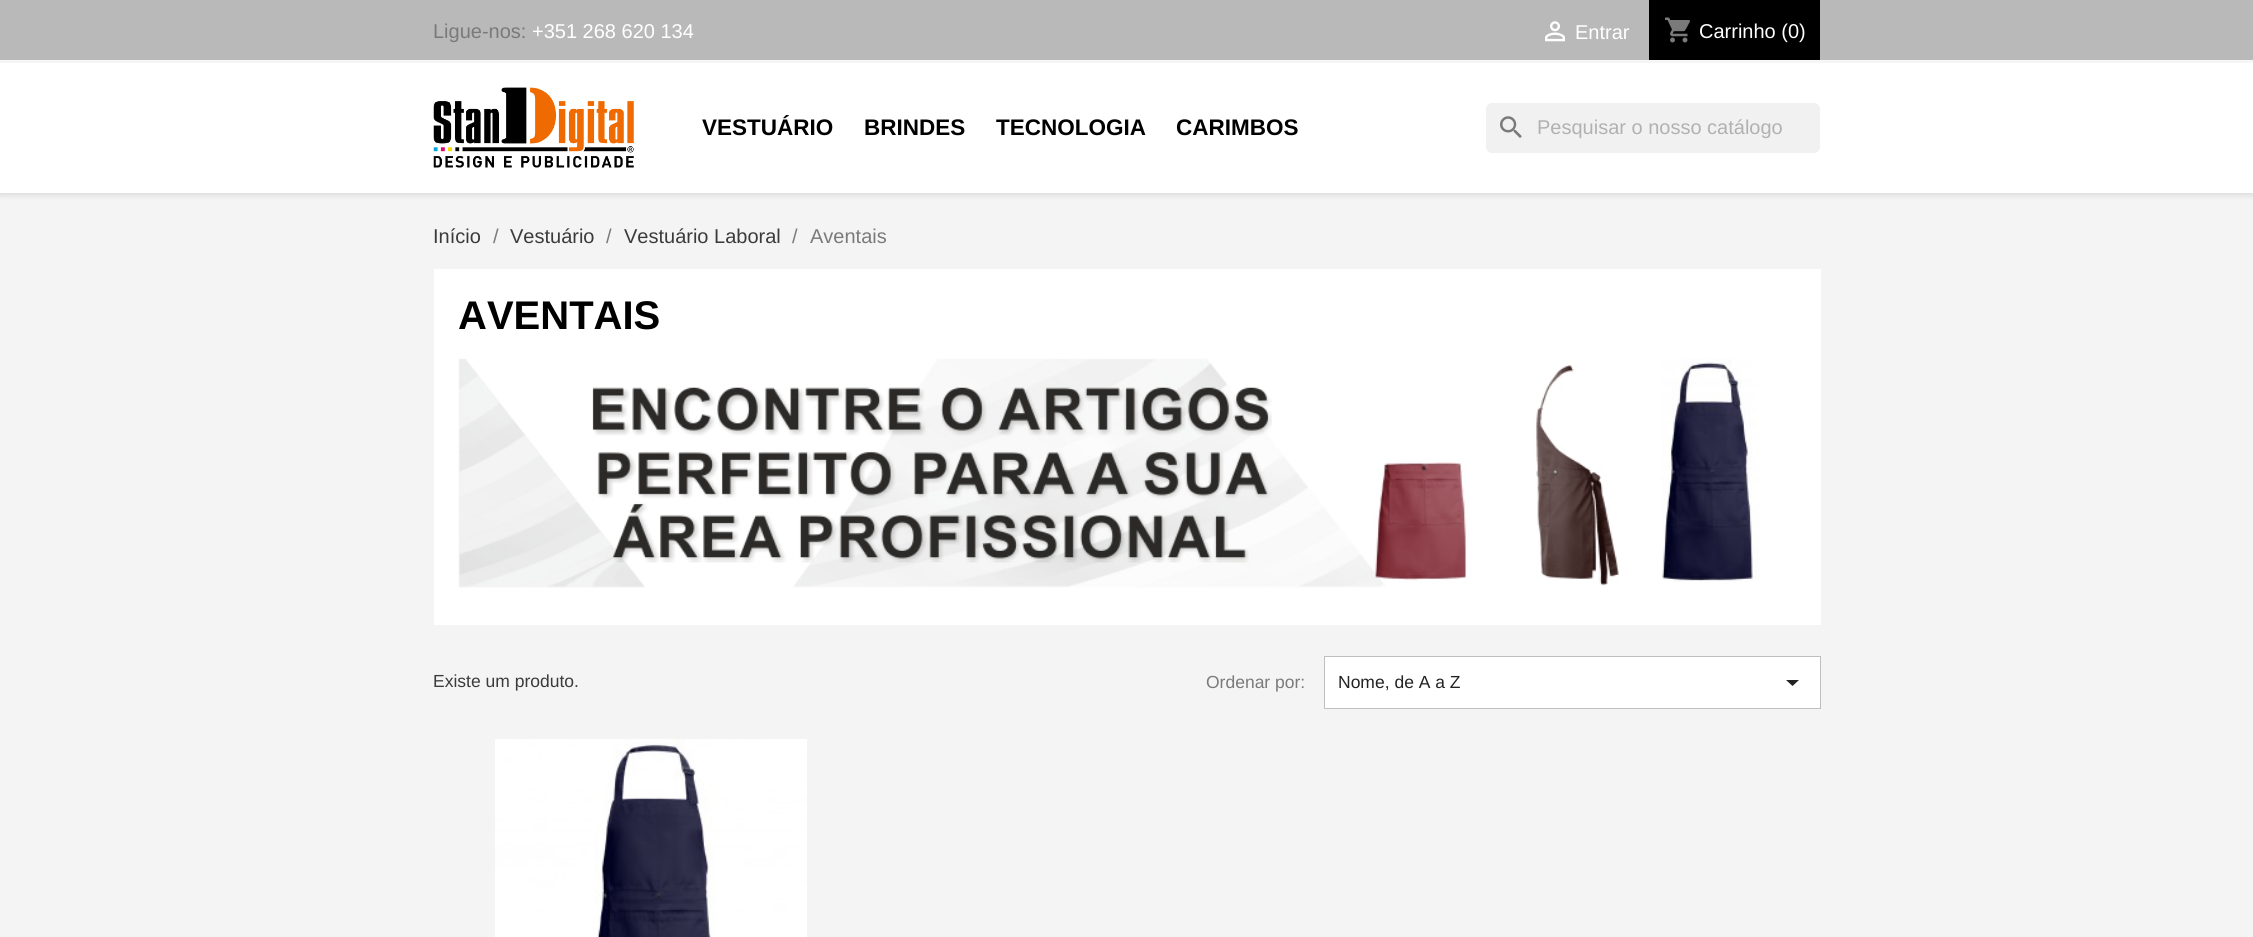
import math
import cairo

surface = cairo.ImageSurface(cairo.FORMAT_RGB24, 2253, 937)
ctx = cairo.Context(surface)
options = cairo.FontOptions()
options.set_hint_metrics(cairo.HINT_METRICS_OFF)
options.set_hint_style(cairo.HINT_STYLE_NONE)
ctx.set_font_options(options)
ctx.set_miter_limit(4)


def set_color(code):
    ctx.set_source_rgb(*(v / 255 for v in bytes.fromhex(code[-6:])))


def draw_text(x, y, s, family, size, color, bold=False, italic=False):
    ctx.select_font_face(family, cairo.FONT_SLANT_ITALIC if italic else cairo.FONT_SLANT_NORMAL, cairo.FONT_WEIGHT_BOLD if bold else cairo.FONT_WEIGHT_NORMAL)
    ctx.set_font_size(size)
    set_color(color)
    ctx.move_to(x, y)
    ctx.show_text(s)


def fill_rect(x, y, w, h, color):
    set_color(color)
    ctx.rectangle(x, y, w, h)
    ctx.fill()


def rounded_rect(x, y, w, h, r):
    ctx.new_sub_path()
    for i, (u, v) in enumerate([(x + w - r, y + h - r), (x + r, y + h - r), (x + r, y + r), (x + w - r, y + r)]):
        ctx.arc(u, v, r, i * math.pi / 2, (i + 1) * math.pi / 2)
    ctx.close_path()


def draw_shadow(x, y, w, h, r, blur, alpha):
    ctx.push_group_with_content(cairo.CONTENT_ALPHA)
    ctx.set_operator(cairo.OPERATOR_SOURCE)
    for i in range(15, -16, -2):
        e = blur * i / 6
        if min(w, h) + 2 * e > 0:
            ctx.set_source_rgba(0, 0, 0, alpha * math.erfc((i - 1) / 8.5) / 2)
            rounded_rect(x - e, y - e, w + 2 * e, h + 2 * e, max(0, min(r + e + blur * .6, min(w, h) / 2 + e)))
            ctx.fill()
    ctx.mask(ctx.pop_group())


def draw_image(path, x, y, w, h):
    ctx.save()
    ctx.set_source_surface(cairo.ImageSurface.create_from_png(path), x, y)
    ctx.rectangle(x, y, w, h)
    ctx.fill()
    ctx.restore()


set_color("#f4f4f4")
ctx.paint()
set_color("#000000")
draw_shadow(0, 3, 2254, 192, 0, 3, 0.11)
fill_rect(0, 63, 2253, 130, "#ffffff")
fill_rect(0, 0, 2253, 60, "#b9b9b9")
fill_rect(0, 60, 2253, 3, "#f6f6f6")
draw_text(433, 38, "Ligue-nos:", "Liberation Sans", 20, "#7a7a7a")
draw_text(532, 38, "+351 268 620 134", "Liberation Sans", 20, "#ffffff")
draw_image("assets/img1.png", 1545, 21, 20, 21)
draw_text(1575, 39, "Entrar", "Liberation Sans", 20, "#ffffff")
fill_rect(1649, 0, 171, 60, "#000000")
draw_image("assets/img2.png", 1665, 17, 25, 26)
draw_text(1699, 38, "Carrinho (0)", "Liberation Sans", 20, "#ffffff")
draw_image("assets/img3.png", 433, 87, 201, 81)
draw_text(702, 135, "VESTUÁRIO", "Liberation Sans", 22.5, "#000000", bold=True)
draw_text(864, 135, "BRINDES", "Liberation Sans", 22.5, "#000000", bold=True)
draw_text(996, 135, "TECNOLOGIA", "Liberation Sans", 22.5, "#000000", bold=True)
draw_text(1176, 135, "CARIMBOS", "Liberation Sans", 22.5, "#000000", bold=True)
set_color("#f1f1f1")
rounded_rect(1486, 103, 334, 50, 6)
ctx.fill()
draw_image("assets/img4.png", 1500, 116, 22, 22)
draw_text(1537, 134, "Pesquisar o nosso catálogo", "Liberation Sans", 20, "#b1b1b1")
draw_text(433, 243, "Início", "Liberation Sans", 20, "#3b3b3b")
draw_text(493, 243, "/", "Liberation Sans", 20, "#7a7a7a")
draw_text(510, 243, "Vestuário", "Liberation Sans", 20, "#3b3b3b")
draw_text(606, 243, "/", "Liberation Sans", 20, "#7a7a7a")
draw_text(624, 243, "Vestuário Laboral", "Liberation Sans", 20, "#3b3b3b")
draw_text(792, 243, "/", "Liberation Sans", 20, "#7a7a7a")
draw_text(810, 243, "Aventais", "Liberation Sans", 20, "#7a7a7a")
fill_rect(434, 269, 1387, 356, "#ffffff")
draw_text(458, 329, "AVENTAIS", "Liberation Sans", 40, "#000000", bold=True)
draw_image("assets/img5.png", 458, 358, 1161, 230)
draw_image("assets/img6.png", 1661, 359, 99, 223)
draw_text(433, 687, "Existe um produto.", "Liberation Sans", 17.5, "#3b3b3b")
draw_text(1206, 688, "Ordenar por:", "Liberation Sans", 17.5, "#7a7a7a")
set_color("#ffffff")
ctx.rectangle(1324.5, 656.5, 496, 52)
ctx.fill_preserve()
set_color("#bfbfbf")
ctx.set_line_width(1)
ctx.stroke()
draw_text(1338, 688, "Nome, de A a Z", "Liberation Sans", 17.5, "#232323")
ctx.new_path()
ctx.move_to(1786, 680)
ctx.line_to(1799, 680)
ctx.line_to(1792.5, 686)
ctx.close_path()
ctx.fill()
draw_image("assets/img7.png", 495, 739, 312, 198)
surface.write_to_png("output.png")
